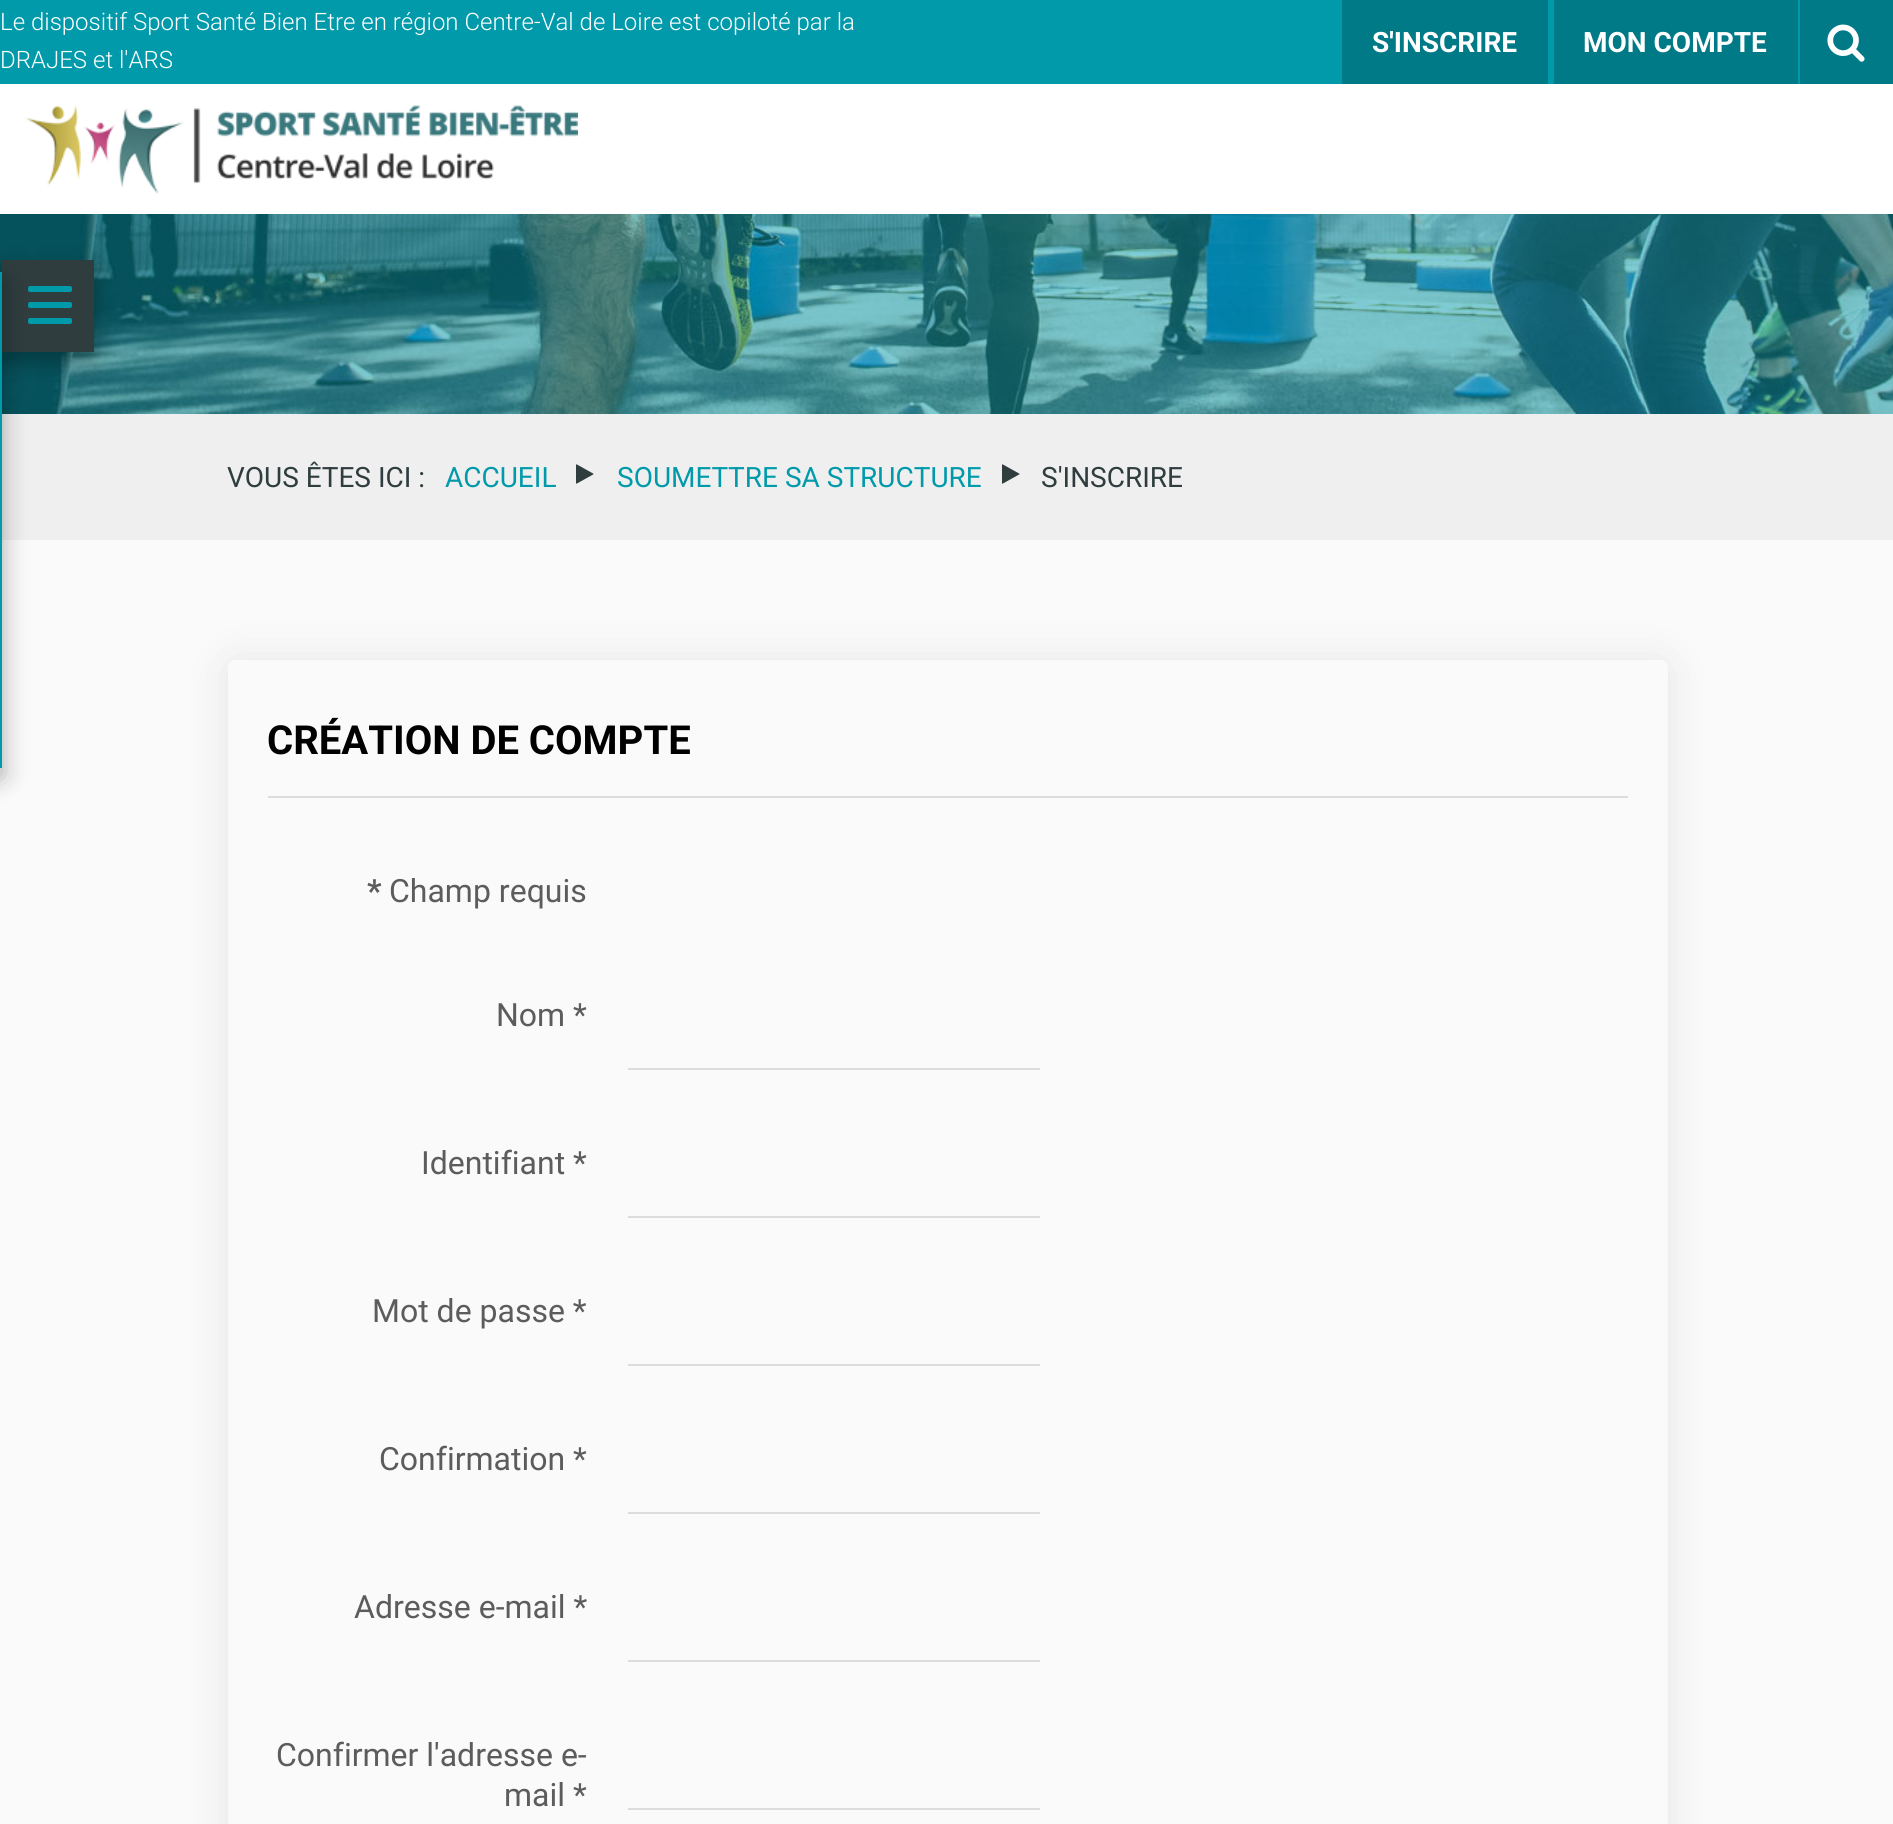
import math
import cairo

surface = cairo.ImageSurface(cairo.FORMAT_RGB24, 1893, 1824)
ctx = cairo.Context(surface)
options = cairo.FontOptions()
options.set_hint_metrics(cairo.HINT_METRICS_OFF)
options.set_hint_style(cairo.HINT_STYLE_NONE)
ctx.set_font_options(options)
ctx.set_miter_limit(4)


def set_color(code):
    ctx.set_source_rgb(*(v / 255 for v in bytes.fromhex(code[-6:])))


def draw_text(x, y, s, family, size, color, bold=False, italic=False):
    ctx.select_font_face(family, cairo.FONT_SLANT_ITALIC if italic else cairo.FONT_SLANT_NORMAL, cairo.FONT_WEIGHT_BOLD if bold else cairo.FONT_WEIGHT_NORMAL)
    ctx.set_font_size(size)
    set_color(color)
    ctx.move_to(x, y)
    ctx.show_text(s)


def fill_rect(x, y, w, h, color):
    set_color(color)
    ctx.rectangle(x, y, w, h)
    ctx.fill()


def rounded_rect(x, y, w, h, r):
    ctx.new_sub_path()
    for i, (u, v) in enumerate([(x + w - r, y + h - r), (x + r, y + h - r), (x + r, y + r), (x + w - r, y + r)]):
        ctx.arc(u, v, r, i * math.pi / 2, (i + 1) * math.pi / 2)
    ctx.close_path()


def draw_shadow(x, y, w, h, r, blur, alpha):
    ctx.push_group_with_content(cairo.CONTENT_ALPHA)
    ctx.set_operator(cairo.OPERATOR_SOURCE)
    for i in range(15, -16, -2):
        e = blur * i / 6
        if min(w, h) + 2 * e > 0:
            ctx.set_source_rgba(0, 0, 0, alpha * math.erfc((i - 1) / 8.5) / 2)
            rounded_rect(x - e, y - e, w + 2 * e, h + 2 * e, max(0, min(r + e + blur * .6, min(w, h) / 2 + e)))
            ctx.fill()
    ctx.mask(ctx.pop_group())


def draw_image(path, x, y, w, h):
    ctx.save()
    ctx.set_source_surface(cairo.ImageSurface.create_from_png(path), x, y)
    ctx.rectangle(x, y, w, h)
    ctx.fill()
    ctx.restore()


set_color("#fafafa")
ctx.paint()
fill_rect(0, 0, 1800, 84, "#009aab")
draw_text(0, 30, "Le dispositif Sport Santé Bien Etre en région Centre-Val de Loire est copiloté par la", "Roboto Light", 24, "#ffffff")
draw_text(0, 68, "DRAJES", "Roboto Light", 24, "#ffffff")
draw_text(93, 68, "et l'ARS", "Roboto Light", 24, "#ffffff")
fill_rect(1342, 0, 206, 84, "#007a87")
draw_text(1372, 52, "S'INSCRIRE", "Roboto", 28, "#ffffff", bold=True)
fill_rect(1554, 0, 244, 84, "#007a87")
draw_text(1583, 52, "MON COMPTE", "Roboto", 28, "#ffffff", bold=True)
fill_rect(1800, 0, 93, 84, "#007a87")
draw_image("assets/img1.png", 1827, 24, 38, 38)
fill_rect(0, 84, 1893, 130, "#ffffff")
draw_image("assets/img2.png", 24, 104, 554, 90)
draw_image("assets/img3.png", 0, 214, 1893, 200)
set_color("#000000")
draw_shadow(2, 268, 92, 92, 0, 15, 0.15)
draw_shadow(2, 270, 92, 92, 0, 11, 0.18)
fill_rect(2, 260, 92, 92, "#2f3d3f")
set_color("#009aab")
rounded_rect(28, 286, 44, 6, 2)
ctx.fill()
rounded_rect(28, 302, 44, 6, 2)
ctx.fill()
rounded_rect(28, 318, 44, 6, 2)
ctx.fill()
fill_rect(2, 414, 1891, 126, "#efefef")
set_color("#000000")
draw_shadow(-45, 280, 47, 496, 0, 15, 0.15)
draw_shadow(-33, 282, 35, 496, 0, 11, 0.18)
fill_rect(0, 272, 2, 496, "#009aab")
draw_text(227, 487, "VOUS ÊTES ICI :", "Roboto", 28, "#2f3d3f")
draw_text(445, 487, "ACCUEIL", "Roboto", 28, "#009aab")
draw_image("assets/img4.png", 576, 464, 18, 20)
draw_text(617, 487, "SOUMETTRE SA STRUCTURE", "Roboto", 28, "#009aab")
draw_image("assets/img4.png", 1002, 464, 18, 20)
draw_text(1041, 487, "S'INSCRIRE", "Roboto", 28, "#2f3d3f")
ctx.save()
ctx.set_fill_rule(cairo.FILL_RULE_EVEN_ODD)
ctx.new_path()
ctx.move_to(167, 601)
ctx.line_to(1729, 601)
ctx.line_to(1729, 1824)
ctx.line_to(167, 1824)
ctx.close_path()
ctx.move_to(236, 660)
ctx.line_to(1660, 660)
ctx.curve_to(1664.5, 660, 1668, 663.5, 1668, 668)
ctx.line_to(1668, 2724)
ctx.curve_to(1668, 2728.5, 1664.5, 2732, 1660, 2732)
ctx.line_to(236, 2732)
ctx.curve_to(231.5, 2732, 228, 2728.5, 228, 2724)
ctx.line_to(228, 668)
ctx.curve_to(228, 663.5, 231.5, 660, 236, 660)
ctx.close_path()
ctx.clip()
set_color("#d0d0d0")
draw_shadow(228, 662, 1440, 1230, 8, 20, 0.5)
ctx.restore()
fill_rect(268, 796, 1360, 2, "#dcdcdc")
draw_text(267, 754, "CRÉATION DE COMPTE", "Roboto", 40, "#000000", bold=True)
draw_text(367, 902, "*", "Roboto", 32, "#5d5c5c", bold=True)
draw_text(389, 902, "Champ requis", "Roboto", 32, "#5d5c5c")
draw_text(496, 1026, "Nom *", "Roboto", 32, "#5d5c5c")
fill_rect(628, 1068, 412, 2, "#dcdcdc")
draw_text(421, 1174, "Identifiant *", "Roboto", 32, "#5d5c5c")
fill_rect(628, 1216, 412, 2, "#dcdcdc")
draw_text(372, 1322, "Mot de passe *", "Roboto", 32, "#5d5c5c")
fill_rect(628, 1364, 412, 2, "#dcdcdc")
draw_text(379, 1470, "Confirmation *", "Roboto", 32, "#5d5c5c")
fill_rect(628, 1512, 412, 2, "#dcdcdc")
draw_text(354, 1618, "Adresse e-mail *", "Roboto", 32, "#5d5c5c")
fill_rect(628, 1660, 412, 2, "#dcdcdc")
draw_text(276, 1766, "Confirmer l'adresse e-", "Roboto", 32, "#5d5c5c")
draw_text(504, 1806, "mail *", "Roboto", 32, "#5d5c5c")
fill_rect(628, 1808, 412, 2, "#dcdcdc")
surface.write_to_png("output.png")
